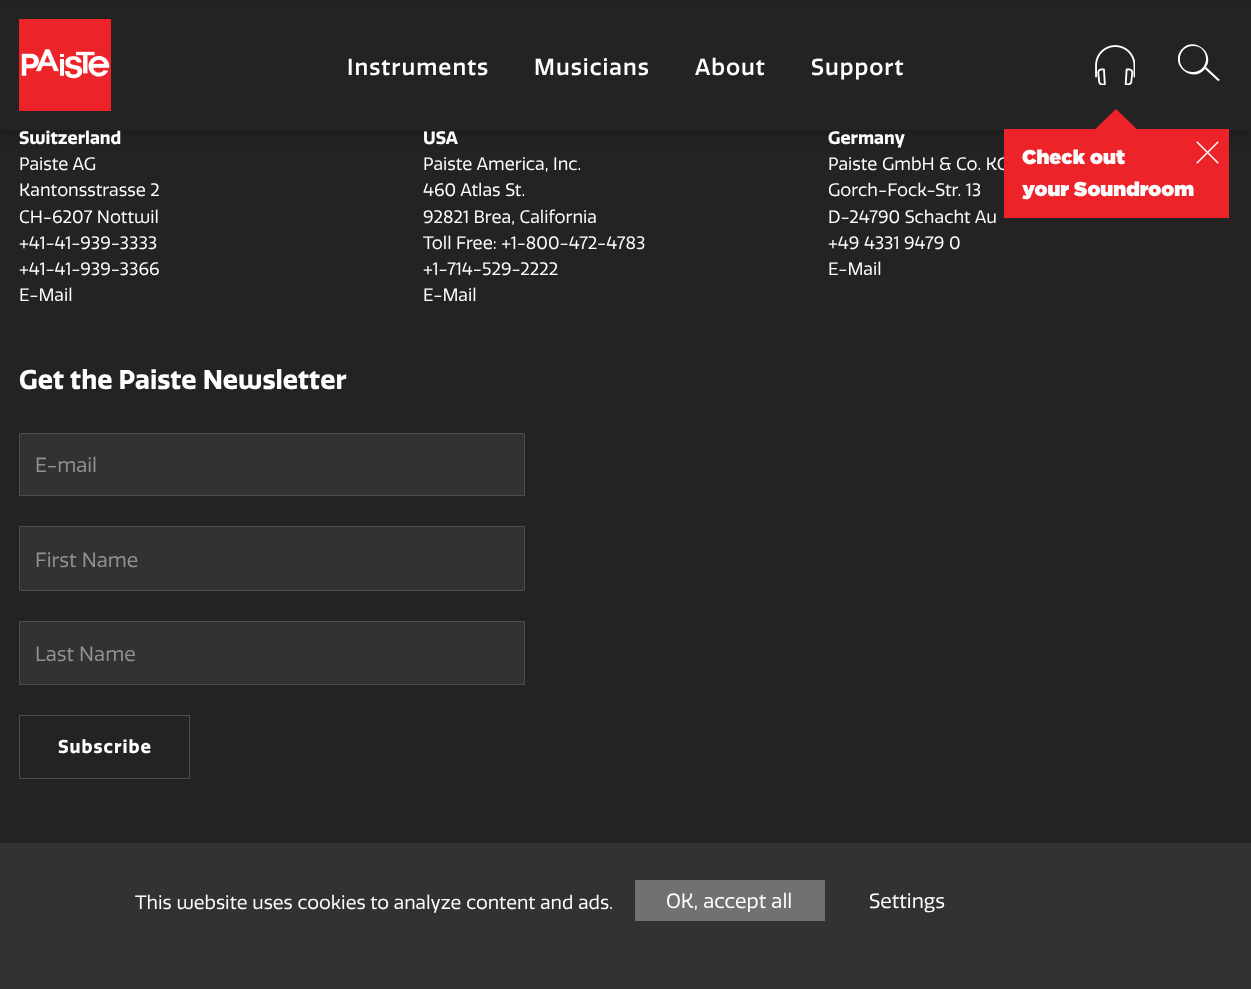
<?xml version="1.0" encoding="UTF-8"?>
<svg xmlns="http://www.w3.org/2000/svg" xmlns:xlink="http://www.w3.org/1999/xlink" width="1251" height="989">
  <defs>
    <clipPath id="clip1"><rect x="1178" y="41" width="42" height="43" /></clipPath>
  </defs>
  <rect width="100%" height="100%" fill="#232323" />
  <rect y="6" width="1251" height="130" fill="#171717" fill-opacity="0.5" filter="blur(6px)" />
  <rect y="5" width="1251" height="125" fill="#232323" />
  <image x="19" y="19" width="92" height="92" xlink:href="image1.png" />
  <g clip-path="url(#clip1)">
    <path d="M 1220 80 l -14 -13 c 9 -14 -11 -30 -23 -19 c -16 15 9 37 22 21 l 13 12 z m -27 -8 c -18 0 -17 -26 0 -26 c 18 0 17 27 -1 26 z" fill="#ffffff" />
  </g>
  <image x="1095" y="45" width="40" height="40" xlink:href="image2.png" />
  <rect x="19.5" y="433.5" width="505" height="62" fill="#323232" stroke="#4d4d4d" />
  <rect x="19.5" y="526.5" width="505" height="64" fill="#323232" stroke="#4d4d4d" />
  <rect x="19.5" y="621.5" width="505" height="63" fill="#323232" stroke="#4d4d4d" />
  <rect x="19.5" y="715.5" width="170" height="63" fill="none" stroke="#4d4d4d" />
  <rect y="843" width="1251" height="146" fill="#323232" />
  <rect x="635" y="880" width="190" height="41" fill="#717171" />
  <text x="347" y="75" style="font-family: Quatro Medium; font-size: 22.5px; font-weight: 500; letter-spacing: 1px; fill: #fefefe">Instruments</text>
  <text x="534" y="75" style="font-family: Quatro Medium; font-size: 22.5px; font-weight: 500; letter-spacing: 1px; fill: #fefefe">Musicians</text>
  <text x="695" y="75" style="font-family: Quatro Medium; font-size: 22.5px; font-weight: 500; letter-spacing: 1px; fill: #fefefe">About</text>
  <text x="811" y="75" style="font-family: Quatro Medium; font-size: 22.5px; font-weight: 500; letter-spacing: 1px; fill: #fefefe">Support</text>
  <text x="19" y="144" style="font-family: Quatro; font-size: 17.5px; font-weight: bold; fill: #fefefe">Switzerland</text>
  <text x="19" y="170" style="font-family: Quatro; font-size: 17.5px; fill: #fefefe">Paiste AG</text>
  <text x="19" y="196" style="font-family: Quatro; font-size: 17.5px; fill: #fefefe">Kantonsstrasse 2</text>
  <text x="19" y="223" style="font-family: Quatro; font-size: 17.5px; fill: #fefefe">CH-6207 Nottwil</text>
  <text x="19" y="249" style="font-family: Quatro; font-size: 17.5px; fill: #fefefe">+41-41-939-3333</text>
  <text x="19" y="275" style="font-family: Quatro; font-size: 17.5px; fill: #fefefe">+41-41-939-3366</text>
  <text x="19" y="301" style="font-family: Quatro; font-size: 17.5px; fill: #fefefe">E-Mail</text>
  <text x="423" y="144" style="font-family: Quatro; font-size: 17.5px; font-weight: bold; fill: #fefefe">USA</text>
  <text x="423" y="170" style="font-family: Quatro; font-size: 17.5px; fill: #fefefe">Paiste America, Inc.</text>
  <text x="423" y="196" style="font-family: Quatro; font-size: 17.5px; fill: #fefefe">460 Atlas St.</text>
  <text x="423" y="223" style="font-family: Quatro; font-size: 17.5px; fill: #fefefe">92821 Brea, California</text>
  <text x="423" y="249" style="font-family: Quatro; font-size: 17.5px; fill: #fefefe">Toll Free: +1-800-472-4783</text>
  <text x="423" y="275" style="font-family: Quatro; font-size: 17.5px; fill: #fefefe">+1-714-529-2222</text>
  <text x="423" y="301" style="font-family: Quatro; font-size: 17.5px; fill: #fefefe">E-Mail</text>
  <text x="828" y="144" style="font-family: Quatro; font-size: 17.5px; font-weight: bold; fill: #fefefe">Germany</text>
  <text x="828" y="170" style="font-family: Quatro; font-size: 17.5px; fill: #fefefe">Paiste GmbH &amp; Co. KG</text>
  <rect x="1004" y="129" width="225" height="89" fill="#ec2329" />
  <image x="1196" y="141" width="23" height="23" xlink:href="image3.png" />
  <text x="1022" y="196" style="font-family: 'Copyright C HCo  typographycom'; font-size: 20px; font-weight: 500; fill: #fefefe">your Soundroom</text>
  <path d="M 1116 109 l 27 26 l -27 27 l -27 -27 z" fill="#ec2329" />
  <text x="1022" y="164" style="font-family: 'Copyright C HCo  typographycom'; font-size: 20px; font-weight: 500; fill: #fefefe">Check out</text>
  <text x="828" y="196" style="font-family: Quatro; font-size: 17.5px; fill: #fefefe">Gorch-Fock-Str. 13</text>
  <text x="828" y="223" style="font-family: Quatro; font-size: 17.5px; fill: #fefefe">D-24790 Schacht Au</text>
  <text x="828" y="249" style="font-family: Quatro; font-size: 17.5px; fill: #fefefe">+49 4331 9479 0</text>
  <text x="828" y="275" style="font-family: Quatro; font-size: 17.5px; fill: #fefefe">E-Mail</text>
  <text x="19" y="389" style="font-family: Quatro; font-size: 26.25px; font-weight: bold; fill: #fefefe">Get the Paiste Newsletter</text>
  <text x="35" y="472" style="font-family: Quatro; font-size: 20px; fill: #919191">E-mail</text>
  <text x="35" y="567" style="font-family: Quatro; font-size: 20px; fill: #919191">First Name</text>
  <text x="35" y="661" style="font-family: Quatro; font-size: 20px; fill: #919191">Last Name</text>
  <text x="58" y="753" style="font-family: Quatro; font-size: 18px; font-weight: bold; letter-spacing: 1px; fill: #fefefe">Subscribe</text>
  <text x="135" y="909" style="font-family: Quatro; font-size: 18.75px; fill: #fefefe">This website uses cookies to analyze content and ads.</text>
  <text x="666" y="908" style="font-family: Quatro; font-size: 20px; fill: #fefefe">OK, accept all</text>
  <text x="869" y="908" style="font-family: Quatro; font-size: 20px; fill: #fefefe">Settings</text>
</svg>
